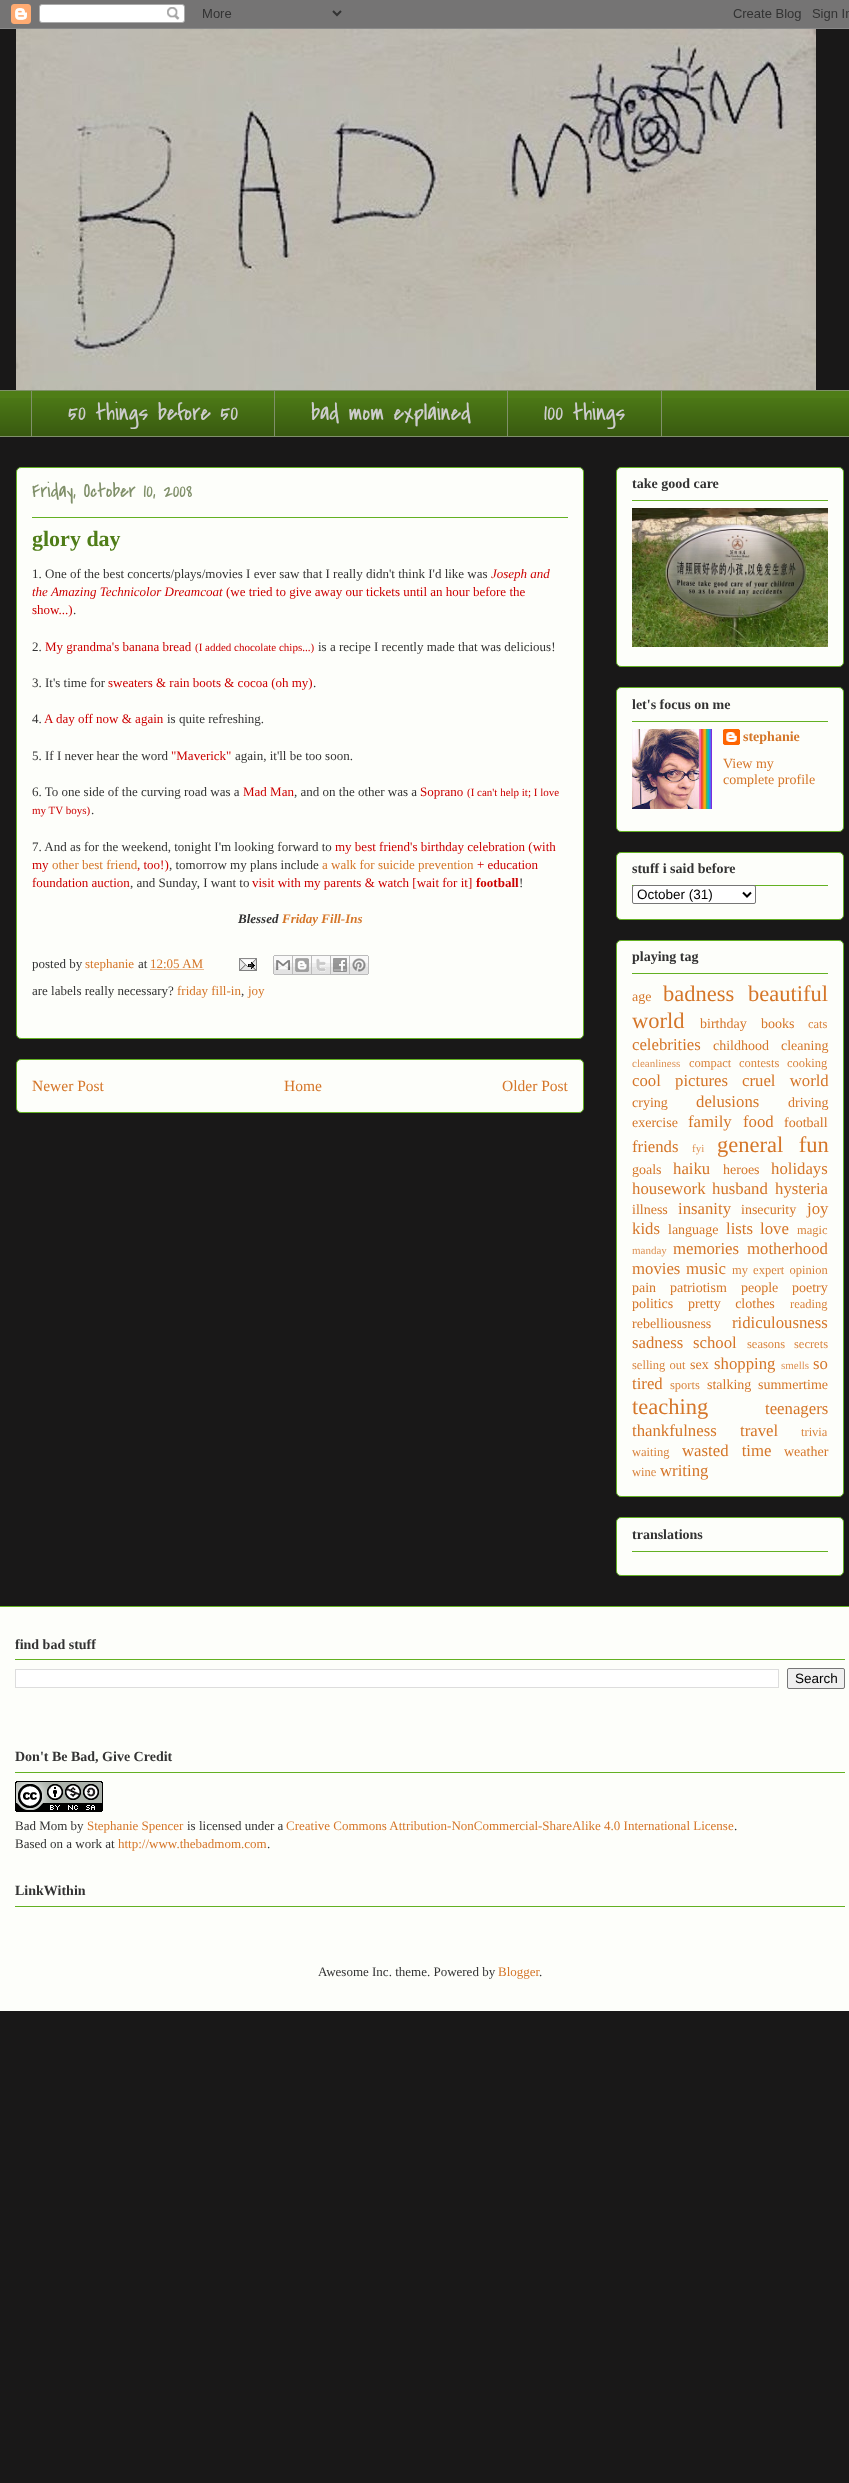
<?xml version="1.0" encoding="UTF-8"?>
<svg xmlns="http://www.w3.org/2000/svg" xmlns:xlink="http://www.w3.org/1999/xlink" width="849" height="2483">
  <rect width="100%" height="100%" fill="#191818" />
  <image x="0" y="0" width="849" height="29" xlink:href="image1.png" />
  <image x="16" y="29" width="800" height="361" xlink:href="image2.png" />
  <rect y="391" width="849" height="45" fill="#4f7d17" />
  <image x="0" y="398" width="849" height="38" xlink:href="image3.png" />
  <rect y="390" width="849" height="1" fill="#80906a" />
  <rect x="31" y="390" width="1" height="47" fill="#80906a" />
  <rect x="274" y="390" width="1" height="47" fill="#80906a" />
  <rect x="507.5" y="390.5" width="154" height="46" fill="none" stroke="#80906a" />
  <rect y="436" width="849" height="1" fill="#80906a" />
  <rect x="16.5" y="467.5" width="567" height="571" rx="4.5" fill="#fdfefa" stroke="#63b122" />
  <rect x="32" y="517" width="536" height="1" fill="#63b122" />
  <path d="M 150.5 969.5 h 53" fill="none" stroke="#d57629" stroke-dasharray="1 1" />
  <image x="239" y="958" width="18" height="13" xlink:href="image4.png" />
  <image x="273" y="955" width="20" height="20" xlink:href="image5.png" />
  <image x="293" y="955" width="19" height="20" xlink:href="image6.png" />
  <image x="312" y="955" width="19" height="20" xlink:href="image7.png" />
  <image x="331" y="955" width="19" height="20" xlink:href="image8.png" />
  <image x="350" y="955" width="19" height="20" xlink:href="image9.png" />
  <rect x="16.5" y="1059.5" width="567" height="53" rx="4.5" fill="#fdfefa" stroke="#63b122" />
  <rect x="616.5" y="467.5" width="227" height="199" rx="4.5" fill="#fdfefa" stroke="#63b122" />
  <rect x="632" y="500" width="196" height="1" fill="#63b122" />
  <image x="632" y="508" width="196" height="139" xlink:href="image10.png" />
  <rect x="616.5" y="687.5" width="227" height="144" rx="4.5" fill="#fdfefa" stroke="#63b122" />
  <rect x="632" y="721" width="196" height="1" fill="#63b122" />
  <image x="632" y="729" width="80" height="80" xlink:href="image11.png" />
  <image x="723" y="729" width="17" height="16" xlink:href="image12.png" />
  <rect x="616.5" y="852.5" width="227" height="67" rx="4.5" fill="#fdfefa" stroke="#63b122" />
  <rect x="632" y="885" width="196" height="1" fill="#63b122" />
  <rect x="632.5" y="885.5" width="123" height="18" rx="1.5" fill="#ffffff" stroke="#767676" />
  <path d="M 743 892.5 l 4 4 l 4 -4" fill="none" stroke="#000000" stroke-width="2" />
  <rect x="616.5" y="940.5" width="227" height="556" rx="4.5" fill="#fdfefa" stroke="#63b122" />
  <rect x="632" y="973" width="196" height="1" fill="#63b122" />
  <rect x="616.5" y="1517.5" width="227" height="58" rx="4.5" fill="#fdfefa" stroke="#63b122" />
  <rect x="632" y="1551" width="196" height="1" fill="#63b122" />
  <rect y="1607" width="849" height="404" fill="#fdfefa" />
  <rect y="1606" width="849" height="1" fill="#63b122" />
  <rect x="15" y="1659" width="830" height="1" fill="#63b122" />
  <rect x="15.5" y="1669.5" width="763" height="18" fill="#ffffff" stroke="#dddddd" />
  <rect x="787.5" y="1668.5" width="57" height="20" rx="1.5" fill="#efefef" stroke="#767676" />
  <rect x="15" y="1772" width="830" height="1" fill="#63b122" />
  <image x="15" y="1781" width="88" height="31" xlink:href="image13.png" />
  <rect x="15" y="1906" width="830" height="1" fill="#63b122" />
  <text x="68" y="420" style="font-family: Covered By Your Grace; font-size: 24px; fill: #cccccc">50 things before 50</text>
  <text x="311" y="420" style="font-family: Covered By Your Grace; font-size: 24px; fill: #cccccc">bad mom explained</text>
  <text x="544" y="420" style="font-family: Covered By Your Grace; font-size: 24px; fill: #cccccc">100 things</text>
  <text x="32" y="497" style="font-family: Covered By Your Grace; font-size: 20px; fill: #80906a">Friday, October 10, 2008</text>
  <text x="32" y="546" style="font-family: Liberation Serif; font-size: 22px; font-weight: bold; fill: #4f7d17">glory day</text>
  <text x="32" y="578" style="font-family: Liberation Serif; font-size: 13px; fill: #333333">1. One of the best concerts/plays/movies I ever saw that I really didn't think I'd like was</text>
  <text x="491" y="578" style="font-family: Liberation Serif; font-size: 13px; font-style: italic; fill: #cc0000">Joseph and</text>
  <text x="32" y="596" style="font-family: Liberation Serif; font-size: 13px; font-style: italic; fill: #cc0000">the Amazing Technicolor Dreamcoat</text>
  <text x="226" y="596" style="font-family: Liberation Serif; font-size: 13px; fill: #cc0000">(we tried to give away our tickets until an hour before the</text>
  <text x="32" y="614" style="font-family: Liberation Serif; font-size: 13px; fill: #cc0000">show...)</text>
  <text x="73" y="614" style="font-family: Liberation Serif; font-size: 13px; fill: #333333">.</text>
  <text x="32" y="651" style="font-family: Liberation Serif; font-size: 13px; fill: #333333">2.</text>
  <text x="45" y="651" style="font-family: Liberation Serif; font-size: 13px; fill: #cc0000">My grandma's banana bread</text>
  <text x="195" y="651" style="font-family: Liberation Serif; font-size: 11px; fill: #cc0000">(I added chocolate chips...)</text>
  <text x="318" y="651" style="font-family: Liberation Serif; font-size: 13px; fill: #333333">is a recipe I recently made that was delicious!</text>
  <text x="32" y="687" style="font-family: Liberation Serif; font-size: 13px; fill: #333333">3. It's time for</text>
  <text x="108" y="687" style="font-family: Liberation Serif; font-size: 13px; fill: #cc0000">sweaters &amp; rain boots &amp; cocoa (oh my)</text>
  <text x="313" y="687" style="font-family: Liberation Serif; font-size: 13px; fill: #333333">.</text>
  <text x="32" y="723" style="font-family: Liberation Serif; font-size: 13px; fill: #333333">4.</text>
  <text x="44" y="723" style="font-family: Liberation Serif; font-size: 13px; fill: #cc0000">A day off now &amp; again</text>
  <text x="167" y="723" style="font-family: Liberation Serif; font-size: 13px; fill: #333333">is quite refreshing.</text>
  <text x="32" y="760" style="font-family: Liberation Serif; font-size: 13px; fill: #333333">5. If I never hear the word</text>
  <text x="171" y="760" style="font-family: Liberation Serif; font-size: 13px; fill: #cc0000">"Maverick"</text>
  <text x="235" y="760" style="font-family: Liberation Serif; font-size: 13px; fill: #333333">again, it'll be too soon.</text>
  <text x="32" y="796" style="font-family: Liberation Serif; font-size: 13px; fill: #333333">6. To one side of the curving road was a</text>
  <text x="243" y="796" style="font-family: Liberation Serif; font-size: 13px; fill: #cc0000">Mad Man</text>
  <text x="294" y="796" style="font-family: Liberation Serif; font-size: 13px; fill: #333333">, and on the other was a</text>
  <text x="420" y="796" style="font-family: Liberation Serif; font-size: 13px; fill: #cc0000">Soprano</text>
  <text x="467" y="796" style="font-family: Liberation Serif; font-size: 11px; fill: #cc0000">(I can't help it; I love</text>
  <text x="32" y="814" style="font-family: Liberation Serif; font-size: 11px; fill: #cc0000">my TV boys)</text>
  <text x="91" y="814" style="font-family: Liberation Serif; font-size: 13px; fill: #333333">.</text>
  <text x="32" y="851" style="font-family: Liberation Serif; font-size: 13px; fill: #333333">7. And as for the weekend, tonight I'm looking forward to</text>
  <text x="335" y="851" style="font-family: Liberation Serif; font-size: 13px; fill: #cc0000">my best friend's birthday celebration (with</text>
  <text x="32" y="869" style="font-family: Liberation Serif; font-size: 13px; fill: #cc0000">my</text>
  <text x="52" y="869" style="font-family: Liberation Serif; font-size: 13px; fill: #d57629">other best friend</text>
  <text x="137" y="869" style="font-family: Liberation Serif; font-size: 13px; fill: #cc0000">, too!)</text>
  <text x="169" y="869" style="font-family: Liberation Serif; font-size: 13px; fill: #333333">, tomorrow my plans include</text>
  <text x="322" y="869" style="font-family: Liberation Serif; font-size: 13px; fill: #d57629">a walk for suicide prevention</text>
  <text x="477" y="869" style="font-family: Liberation Serif; font-size: 13px; fill: #cc0000">+ education</text>
  <text x="32" y="887" style="font-family: Liberation Serif; font-size: 13px; fill: #cc0000">foundation auction</text>
  <text x="130" y="887" style="font-family: Liberation Serif; font-size: 13px; fill: #333333">, and Sunday, I want to</text>
  <text x="252" y="887" style="font-family: Liberation Serif; font-size: 13px; fill: #cc0000">visit with my parents &amp; watch [wait for it]</text>
  <text x="476" y="887" style="font-family: Liberation Serif; font-size: 13px; font-weight: bold; fill: #cc0000">football</text>
  <text x="519" y="887" style="font-family: Liberation Serif; font-size: 13px; fill: #333333">!</text>
  <text x="238" y="923" style="font-family: Liberation Serif; font-size: 13px; font-weight: bold; font-style: italic; fill: #333333">Blessed</text>
  <text x="282" y="923" style="font-family: Liberation Serif; font-size: 13px; font-weight: bold; font-style: italic; fill: #d57629">Friday Fill-Ins</text>
  <text x="32" y="968" style="font-family: Liberation Serif; font-size: 13px; fill: #333333">posted by</text>
  <text x="85" y="968" style="font-family: Liberation Serif; font-size: 13px; fill: #d57629">stephanie</text>
  <text x="138" y="968" style="font-family: Liberation Serif; font-size: 13px; fill: #333333">at</text>
  <text x="150" y="968" style="font-family: Liberation Serif; font-size: 13px; fill: #d57629">12:05 AM</text>
  <text x="32" y="995" style="font-family: Liberation Serif; font-size: 13px; fill: #333333">are labels really necessary?</text>
  <text x="177" y="995" style="font-family: Liberation Serif; font-size: 13px; fill: #d57629">friday fill-in</text>
  <text x="241" y="995" style="font-family: Liberation Serif; font-size: 13px; fill: #333333">,</text>
  <text x="248" y="995" style="font-family: Liberation Serif; font-size: 13px; fill: #d57629">joy</text>
  <text x="32" y="1091" style="font-family: Liberation Serif; font-size: 15.5px; fill: #d57629">Newer Post</text>
  <text x="284" y="1091" style="font-family: Liberation Serif; font-size: 15.5px; fill: #d57629">Home</text>
  <text x="502" y="1091" style="font-family: Liberation Serif; font-size: 15.5px; fill: #d57629">Older Post</text>
  <text x="632" y="488" style="font-family: Liberation Serif; font-size: 14px; font-weight: bold; fill: #333333">take good care</text>
  <text x="632" y="709" style="font-family: Liberation Serif; font-size: 14px; font-weight: bold; fill: #333333">let's focus on me</text>
  <text x="743" y="741" style="font-family: Liberation Serif; font-size: 14px; font-weight: bold; fill: #d57629">stephanie</text>
  <text x="723" y="768" style="font-family: Liberation Serif; font-size: 14px; fill: #d57629">View my</text>
  <text x="723" y="784" style="font-family: Liberation Serif; font-size: 14px; fill: #d57629">complete profile</text>
  <text x="632" y="873" style="font-family: Liberation Serif; font-size: 14px; font-weight: bold; fill: #333333">stuff i said before</text>
  <text x="637" y="899" style="font-family: Liberation Sans; font-size: 13.5px; fill: #000000">October (31)</text>
  <text x="632" y="961" style="font-family: Liberation Serif; font-size: 14px; font-weight: bold; fill: #333333">playing tag</text>
  <text x="632" y="1001" style="font-family: Liberation Serif; font-size: 14px; fill: #d57629">age</text>
  <text x="663" y="1001" style="font-family: Liberation Serif; font-size: 22.5px; fill: #d57629">badness</text>
  <text x="748" y="1001" style="font-family: Liberation Serif; font-size: 22.5px; fill: #d57629">beautiful</text>
  <text x="632" y="1028" style="font-family: Liberation Serif; font-size: 22.5px; fill: #d57629">world</text>
  <text x="700" y="1028" style="font-family: Liberation Serif; font-size: 14px; fill: #d57629">birthday</text>
  <text x="761" y="1028" style="font-family: Liberation Serif; font-size: 14px; fill: #d57629">books</text>
  <text x="808" y="1028" style="font-family: Liberation Serif; font-size: 12.5px; fill: #d9843e">cats</text>
  <text x="632" y="1050" style="font-family: Liberation Serif; font-size: 16.75px; fill: #d57629">celebrities</text>
  <text x="713" y="1050" style="font-family: Liberation Serif; font-size: 14px; fill: #d57629">childhood</text>
  <text x="781" y="1050" style="font-family: Liberation Serif; font-size: 14px; fill: #d57629">cleaning</text>
  <text x="632" y="1067" style="font-family: Liberation Serif; font-size: 11px; fill: #dd9153">cleanliness</text>
  <text x="689" y="1067" style="font-family: Liberation Serif; font-size: 12.5px; fill: #d9843e">compact</text>
  <text x="739" y="1067" style="font-family: Liberation Serif; font-size: 12.5px; fill: #d9843e">contests</text>
  <text x="787" y="1067" style="font-family: Liberation Serif; font-size: 12.5px; fill: #d9843e">cooking</text>
  <text x="632" y="1086" word-spacing="10" style="font-family: Liberation Serif; font-size: 16.75px; fill: #d57629">cool pictures</text>
  <text x="742" y="1086" word-spacing="10" style="font-family: Liberation Serif; font-size: 16.75px; fill: #d57629">cruel world</text>
  <text x="632" y="1107" style="font-family: Liberation Serif; font-size: 14px; fill: #d57629">crying</text>
  <text x="696" y="1107" style="font-family: Liberation Serif; font-size: 16.75px; fill: #d57629">delusions</text>
  <text x="788" y="1107" style="font-family: Liberation Serif; font-size: 14px; fill: #d57629">driving</text>
  <text x="632" y="1127" style="font-family: Liberation Serif; font-size: 14px; fill: #d57629">exercise</text>
  <text x="688" y="1127" style="font-family: Liberation Serif; font-size: 16.75px; fill: #d57629">family</text>
  <text x="743" y="1127" style="font-family: Liberation Serif; font-size: 16.75px; fill: #d57629">food</text>
  <text x="784" y="1127" style="font-family: Liberation Serif; font-size: 14px; fill: #d57629">football</text>
  <text x="632" y="1152" style="font-family: Liberation Serif; font-size: 16.75px; fill: #d57629">friends</text>
  <text x="692" y="1152" style="font-family: Liberation Serif; font-size: 11px; fill: #dd9153">fyi</text>
  <text x="717" y="1152" word-spacing="10" style="font-family: Liberation Serif; font-size: 22.5px; fill: #d57629">general fun</text>
  <text x="632" y="1174" style="font-family: Liberation Serif; font-size: 14px; fill: #d57629">goals</text>
  <text x="673" y="1174" style="font-family: Liberation Serif; font-size: 16.75px; fill: #d57629">haiku</text>
  <text x="723" y="1174" style="font-family: Liberation Serif; font-size: 14px; fill: #d57629">heroes</text>
  <text x="771" y="1174" style="font-family: Liberation Serif; font-size: 16.75px; fill: #d57629">holidays</text>
  <text x="632" y="1194" style="font-family: Liberation Serif; font-size: 16.75px; fill: #d57629">housework</text>
  <text x="712" y="1194" style="font-family: Liberation Serif; font-size: 16.75px; fill: #d57629">husband</text>
  <text x="775" y="1194" style="font-family: Liberation Serif; font-size: 16.75px; fill: #d57629">hysteria</text>
  <text x="632" y="1214" style="font-family: Liberation Serif; font-size: 14px; fill: #d57629">illness</text>
  <text x="678" y="1214" style="font-family: Liberation Serif; font-size: 16.75px; fill: #d57629">insanity</text>
  <text x="741" y="1214" style="font-family: Liberation Serif; font-size: 14px; fill: #d57629">insecurity</text>
  <text x="807" y="1214" style="font-family: Liberation Serif; font-size: 16.75px; fill: #d57629">joy</text>
  <text x="632" y="1234" style="font-family: Liberation Serif; font-size: 16.75px; fill: #d57629">kids</text>
  <text x="668" y="1234" style="font-family: Liberation Serif; font-size: 14px; fill: #d57629">language</text>
  <text x="726" y="1234" style="font-family: Liberation Serif; font-size: 16.75px; fill: #d57629">lists</text>
  <text x="760" y="1234" style="font-family: Liberation Serif; font-size: 16.75px; fill: #d57629">love</text>
  <text x="797" y="1234" style="font-family: Liberation Serif; font-size: 12.5px; fill: #d9843e">magic</text>
  <text x="632" y="1254" style="font-family: Liberation Serif; font-size: 11px; fill: #dd9153">manday</text>
  <text x="673" y="1254" style="font-family: Liberation Serif; font-size: 16.75px; fill: #d57629">memories</text>
  <text x="747" y="1254" style="font-family: Liberation Serif; font-size: 16.75px; fill: #d57629">motherhood</text>
  <text x="632" y="1274" style="font-family: Liberation Serif; font-size: 16.75px; fill: #d57629">movies</text>
  <text x="686" y="1274" style="font-family: Liberation Serif; font-size: 16.75px; fill: #d57629">music</text>
  <text x="732" y="1274" word-spacing="2" style="font-family: Liberation Serif; font-size: 12.5px; fill: #d9843e">my expert opinion</text>
  <text x="632" y="1292" style="font-family: Liberation Serif; font-size: 14px; fill: #d57629">pain</text>
  <text x="670" y="1292" style="font-family: Liberation Serif; font-size: 14px; fill: #d57629">patriotism</text>
  <text x="741" y="1292" style="font-family: Liberation Serif; font-size: 14px; fill: #d57629">people</text>
  <text x="792" y="1292" style="font-family: Liberation Serif; font-size: 14px; fill: #d57629">poetry</text>
  <text x="632" y="1308" style="font-family: Liberation Serif; font-size: 14px; fill: #d57629">politics</text>
  <text x="688" y="1308" word-spacing="11" style="font-family: Liberation Serif; font-size: 14px; fill: #d57629">pretty clothes</text>
  <text x="790" y="1308" style="font-family: Liberation Serif; font-size: 12.5px; fill: #d9843e">reading</text>
  <text x="632" y="1328" style="font-family: Liberation Serif; font-size: 14px; fill: #d57629">rebelliousness</text>
  <text x="732" y="1328" style="font-family: Liberation Serif; font-size: 16.75px; fill: #d57629">ridiculousness</text>
  <text x="632" y="1348" style="font-family: Liberation Serif; font-size: 16.75px; fill: #d57629">sadness</text>
  <text x="693" y="1348" style="font-family: Liberation Serif; font-size: 16.75px; fill: #d57629">school</text>
  <text x="747" y="1348" style="font-family: Liberation Serif; font-size: 12.5px; fill: #d9843e">seasons</text>
  <text x="794" y="1348" style="font-family: Liberation Serif; font-size: 12.5px; fill: #d9843e">secrets</text>
  <text x="632" y="1369" word-spacing="1" style="font-family: Liberation Serif; font-size: 12.5px; fill: #d9843e">selling out</text>
  <text x="690" y="1369" style="font-family: Liberation Serif; font-size: 14px; fill: #d57629">sex</text>
  <text x="714" y="1369" style="font-family: Liberation Serif; font-size: 16.75px; fill: #d57629">shopping</text>
  <text x="781" y="1369" style="font-family: Liberation Serif; font-size: 11px; fill: #dd9153">smells</text>
  <text x="813" y="1369" style="font-family: Liberation Serif; font-size: 16.75px; fill: #d57629">so</text>
  <text x="632" y="1389" style="font-family: Liberation Serif; font-size: 16.75px; fill: #d57629">tired</text>
  <text x="670" y="1389" style="font-family: Liberation Serif; font-size: 12.5px; fill: #d9843e">sports</text>
  <text x="707" y="1389" style="font-family: Liberation Serif; font-size: 14px; fill: #d57629">stalking</text>
  <text x="758" y="1389" style="font-family: Liberation Serif; font-size: 14px; fill: #d57629">summertime</text>
  <text x="632" y="1414" style="font-family: Liberation Serif; font-size: 22.5px; fill: #d57629">teaching</text>
  <text x="765" y="1414" style="font-family: Liberation Serif; font-size: 16.75px; fill: #d57629">teenagers</text>
  <text x="632" y="1436" style="font-family: Liberation Serif; font-size: 16.75px; fill: #d57629">thankfulness</text>
  <text x="740" y="1436" style="font-family: Liberation Serif; font-size: 16.75px; fill: #d57629">travel</text>
  <text x="801" y="1436" style="font-family: Liberation Serif; font-size: 12.5px; fill: #d9843e">trivia</text>
  <text x="632" y="1456" style="font-family: Liberation Serif; font-size: 12.5px; fill: #d9843e">waiting</text>
  <text x="682" y="1456" word-spacing="9" style="font-family: Liberation Serif; font-size: 16.75px; fill: #d57629">wasted time</text>
  <text x="784" y="1456" style="font-family: Liberation Serif; font-size: 14px; fill: #d57629">weather</text>
  <text x="632" y="1476" style="font-family: Liberation Serif; font-size: 12.5px; fill: #d9843e">wine</text>
  <text x="660" y="1476" style="font-family: Liberation Serif; font-size: 16.75px; fill: #d57629">writing</text>
  <text x="632" y="1539" style="font-family: Liberation Serif; font-size: 14px; font-weight: bold; fill: #333333">translations</text>
  <text x="15" y="1649" style="font-family: Liberation Serif; font-size: 14px; font-weight: bold; fill: #333333">find bad stuff</text>
  <text x="795" y="1683" style="font-family: Liberation Sans; font-size: 13.5px; fill: #000000">Search</text>
  <text x="15" y="1761" style="font-family: Liberation Serif; font-size: 14px; font-weight: bold; fill: #333333">Don't Be Bad, Give Credit</text>
  <text x="15" y="1830" style="font-family: Liberation Serif; font-size: 13px; fill: #333333">Bad Mom by</text>
  <text x="87" y="1830" style="font-family: Liberation Serif; font-size: 13px; fill: #d57629">Stephanie Spencer</text>
  <text x="187" y="1830" style="font-family: Liberation Serif; font-size: 13px; fill: #333333">is licensed under a</text>
  <text x="286" y="1830" style="font-family: Liberation Serif; font-size: 13px; fill: #d57629">Creative Commons Attribution-NonCommercial-ShareAlike 4.0 International License</text>
  <text x="734" y="1830" style="font-family: Liberation Serif; font-size: 13px; fill: #333333">.</text>
  <text x="15" y="1848" style="font-family: Liberation Serif; font-size: 13px; fill: #333333">Based on a work at</text>
  <text x="118" y="1848" style="font-family: Liberation Serif; font-size: 13px; fill: #d57629">http://www.thebadmom.com</text>
  <text x="267" y="1848" style="font-family: Liberation Serif; font-size: 13px; fill: #333333">.</text>
  <text x="15" y="1895" style="font-family: Liberation Serif; font-size: 14px; font-weight: bold; fill: #333333">LinkWithin</text>
  <text x="318" y="1976" style="font-family: Liberation Serif; font-size: 13px; fill: #333333">Awesome Inc. theme. Powered by</text>
  <text x="498" y="1976" style="font-family: Liberation Serif; font-size: 13px; fill: #d57629">Blogger</text>
  <text x="539" y="1976" style="font-family: Liberation Serif; font-size: 13px; fill: #333333">.</text>
</svg>
